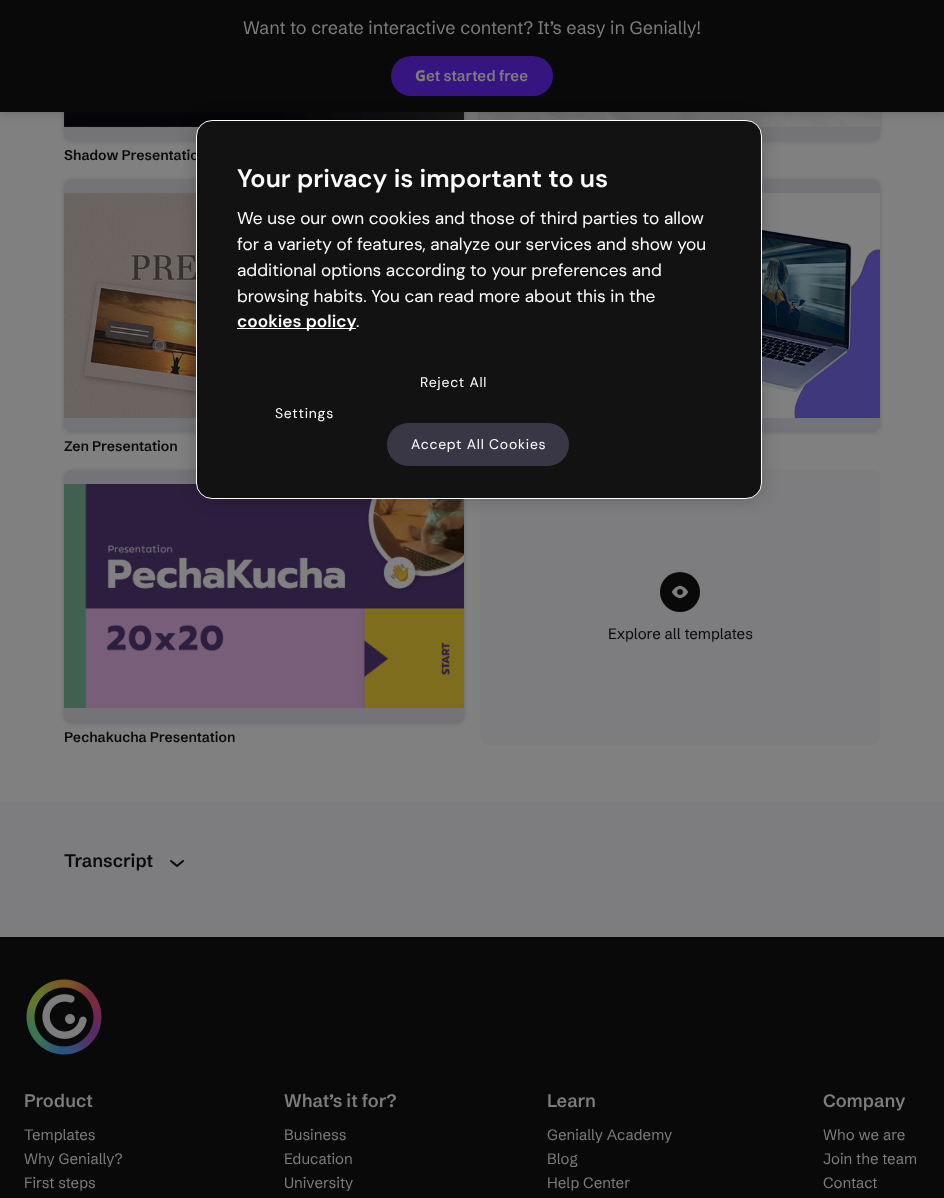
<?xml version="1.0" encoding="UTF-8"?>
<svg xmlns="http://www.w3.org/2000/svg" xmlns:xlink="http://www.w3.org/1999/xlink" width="944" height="1198">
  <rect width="100%" height="100%" fill="#808080" />
  <rect x="480" y="-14" width="400" height="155" rx="8" fill="#090909" fill-opacity="0.2" filter="blur(2px)" />
  <rect x="480" y="-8" width="400" height="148" rx="8" fill="#747378" />
  <image x="480" y="112" width="400" height="15" xlink:href="image1.png" />
  <rect x="64" y="-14" width="400" height="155" rx="8" fill="#090909" fill-opacity="0.2" filter="blur(2px)" />
  <rect x="64" y="-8" width="400" height="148" rx="8" fill="#747378" />
  <image x="64" y="112" width="400" height="15" xlink:href="image2.png" />
  <rect y="-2" width="944" height="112" fill="#090909" fill-opacity="0.3" filter="blur(6.5px)" />
  <rect width="944" height="112" fill="#090909" />
  <rect x="391" y="56" width="162" height="40" rx="20" fill="#361580" />
  <rect x="480" y="180" width="400" height="252" rx="8" fill="#090909" fill-opacity="0.2" filter="blur(2px)" />
  <rect x="480" y="179" width="400" height="252" rx="8" fill="#747378" />
  <image x="762" y="193" width="118" height="225" xlink:href="image3.png" />
  <rect x="64" y="180" width="400" height="252" rx="8" fill="#090909" fill-opacity="0.2" filter="blur(2px)" />
  <rect x="64" y="179" width="400" height="252" rx="8" fill="#747378" />
  <image x="64" y="193" width="132" height="225" xlink:href="image4.png" />
  <rect x="480" y="470" width="400" height="275" rx="8" fill="#7d7c7e" />
  <circle cx="680" cy="592" r="20" fill="#090909" />
  <image x="672" y="586" width="16" height="12" xlink:href="image5.png" />
  <rect x="64" y="471" width="400" height="252" rx="8" fill="#090909" fill-opacity="0.2" filter="blur(2px)" />
  <rect x="64" y="470" width="400" height="252" rx="8" fill="#747378" />
  <image x="64" y="484" width="400" height="224" xlink:href="image6.png" />
  <rect y="801" width="944" height="136" fill="#7d7c7e" />
  <image x="170" y="860" width="14" height="7" xlink:href="image7.png" />
  <rect y="937" width="944" height="261" fill="#090909" />
  <image x="26" y="979" width="76" height="76" xlink:href="image8.png" />
  <rect x="196" y="120" width="566" height="379" rx="16" fill="#000000" fill-opacity="0.2" filter="blur(9px)" />
  <text x="243" y="34" style="font-family: Schibsted Grotesk; font-size: 18px; fill: #7d7c7e">Want to create interactive content? It’s easy in Genially!</text>
  <text x="415" y="81" style="font-family: Noto Sans; font-size: 15px; font-weight: 800; fill: #7d7c7e">G</text>
  <text x="426" y="81" style="font-family: Schibsted Grotesk; font-size: 15px; font-weight: 600; fill: #7d7c7e">et started free</text>
  <text x="64" y="160" style="font-family: Schibsted Grotesk; font-size: 14px; font-weight: 600; fill: #090909">Shadow Presentatio</text>
  <text x="64" y="451" style="font-family: Schibsted Grotesk; font-size: 14px; font-weight: 600; fill: #090909">Zen Presentation</text>
  <text x="608" y="639" style="font-family: Schibsted Grotesk; font-size: 15px; fill: #090909">Explore all templates</text>
  <text x="64" y="742" style="font-family: Schibsted Grotesk; font-size: 14px; font-weight: 600; fill: #090909">Pechakucha Presentation</text>
  <text x="64" y="867" style="font-family: Schibsted Grotesk; font-size: 18px; font-weight: 600; fill: #090909">Transcript</text>
  <text x="24" y="1107" style="font-family: Schibsted Grotesk; font-size: 18px; font-weight: 600; fill: #7d7c7e">Product</text>
  <text x="24" y="1140" style="font-family: Schibsted Grotesk; font-size: 15px; fill: #7d7c7e">Templates</text>
  <text x="24" y="1164" style="font-family: Schibsted Grotesk; font-size: 15px; fill: #7d7c7e">Why Genially?</text>
  <text x="24" y="1188" style="font-family: Schibsted Grotesk; font-size: 15px; fill: #7d7c7e">First steps</text>
  <text x="284" y="1107" style="font-family: Schibsted Grotesk; font-size: 18px; font-weight: 600; fill: #7d7c7e">What’s it for?</text>
  <text x="284" y="1140" style="font-family: Schibsted Grotesk; font-size: 15px; fill: #7d7c7e">Business</text>
  <text x="284" y="1164" style="font-family: Schibsted Grotesk; font-size: 15px; fill: #7d7c7e">Education</text>
  <text x="284" y="1188" style="font-family: Schibsted Grotesk; font-size: 15px; fill: #7d7c7e">University</text>
  <text x="547" y="1107" style="font-family: Schibsted Grotesk; font-size: 18px; font-weight: 600; fill: #7d7c7e">Learn</text>
  <text x="547" y="1140" style="font-family: Schibsted Grotesk; font-size: 15px; fill: #7d7c7e">Genially Academy</text>
  <text x="547" y="1164" style="font-family: Schibsted Grotesk; font-size: 15px; fill: #7d7c7e">Blog</text>
  <text x="547" y="1188" style="font-family: Schibsted Grotesk; font-size: 15px; fill: #7d7c7e">Help Center</text>
  <text x="823" y="1107" style="font-family: Schibsted Grotesk; font-size: 18px; font-weight: 600; fill: #7d7c7e">Company</text>
  <text x="823" y="1140" style="font-family: Schibsted Grotesk; font-size: 15px; fill: #7d7c7e">Who we are</text>
  <text x="823" y="1164" style="font-family: Schibsted Grotesk; font-size: 15px; fill: #7d7c7e">Join the team</text>
  <text x="823" y="1188" style="font-family: Schibsted Grotesk; font-size: 15px; fill: #7d7c7e">Contact</text>
  <rect x="196.5" y="120.5" width="565" height="378" rx="15.5" fill="#121212" stroke="#ffffff" />
  <text x="237" y="187" style="font-family: DM Sans; font-size: 25.25px; font-weight: 600; fill: #ffffff">Your privacy is important to us</text>
  <text x="237" y="224" style="font-family: DM Sans; font-size: 17.25px; fill: #ffffff">We use our own cookies and those of third parties to allow</text>
  <text x="237" y="250" style="font-family: DM Sans; font-size: 17.25px; fill: #ffffff">for a variety of features, analyze our services and show you</text>
  <text x="237" y="276" style="font-family: DM Sans; font-size: 17.25px; fill: #ffffff">additional options according to your preferences and</text>
  <text x="237" y="302" style="font-family: DM Sans; font-size: 17.25px; fill: #ffffff">browsing habits. You can read more about this in the</text>
  <rect x="237" y="328" width="119" height="1" fill="#ffffff" />
  <text x="237" y="327" style="font-family: DM Sans; font-size: 17.25px; font-weight: 600; fill: #ffffff">cookies policy</text>
  <text x="356" y="327" style="font-family: DM Sans; font-size: 17.25px; fill: #ffffff">.</text>
  <text x="275" y="418" style="font-family: DM Sans; font-size: 14px; letter-spacing: 0.75px; fill: #ffffff">Settings</text>
  <text x="420" y="387" style="font-family: DM Sans; font-size: 14px; letter-spacing: 0.75px; fill: #ffffff">Reject All</text>
  <rect x="386.5" y="422.5" width="183" height="44" rx="22" fill="#393645" stroke="#121212" />
  <text x="411" y="449" style="font-family: DM Sans; font-size: 14px; letter-spacing: 0.75px; fill: #ffffff">Accept All Cookies</text>
</svg>
